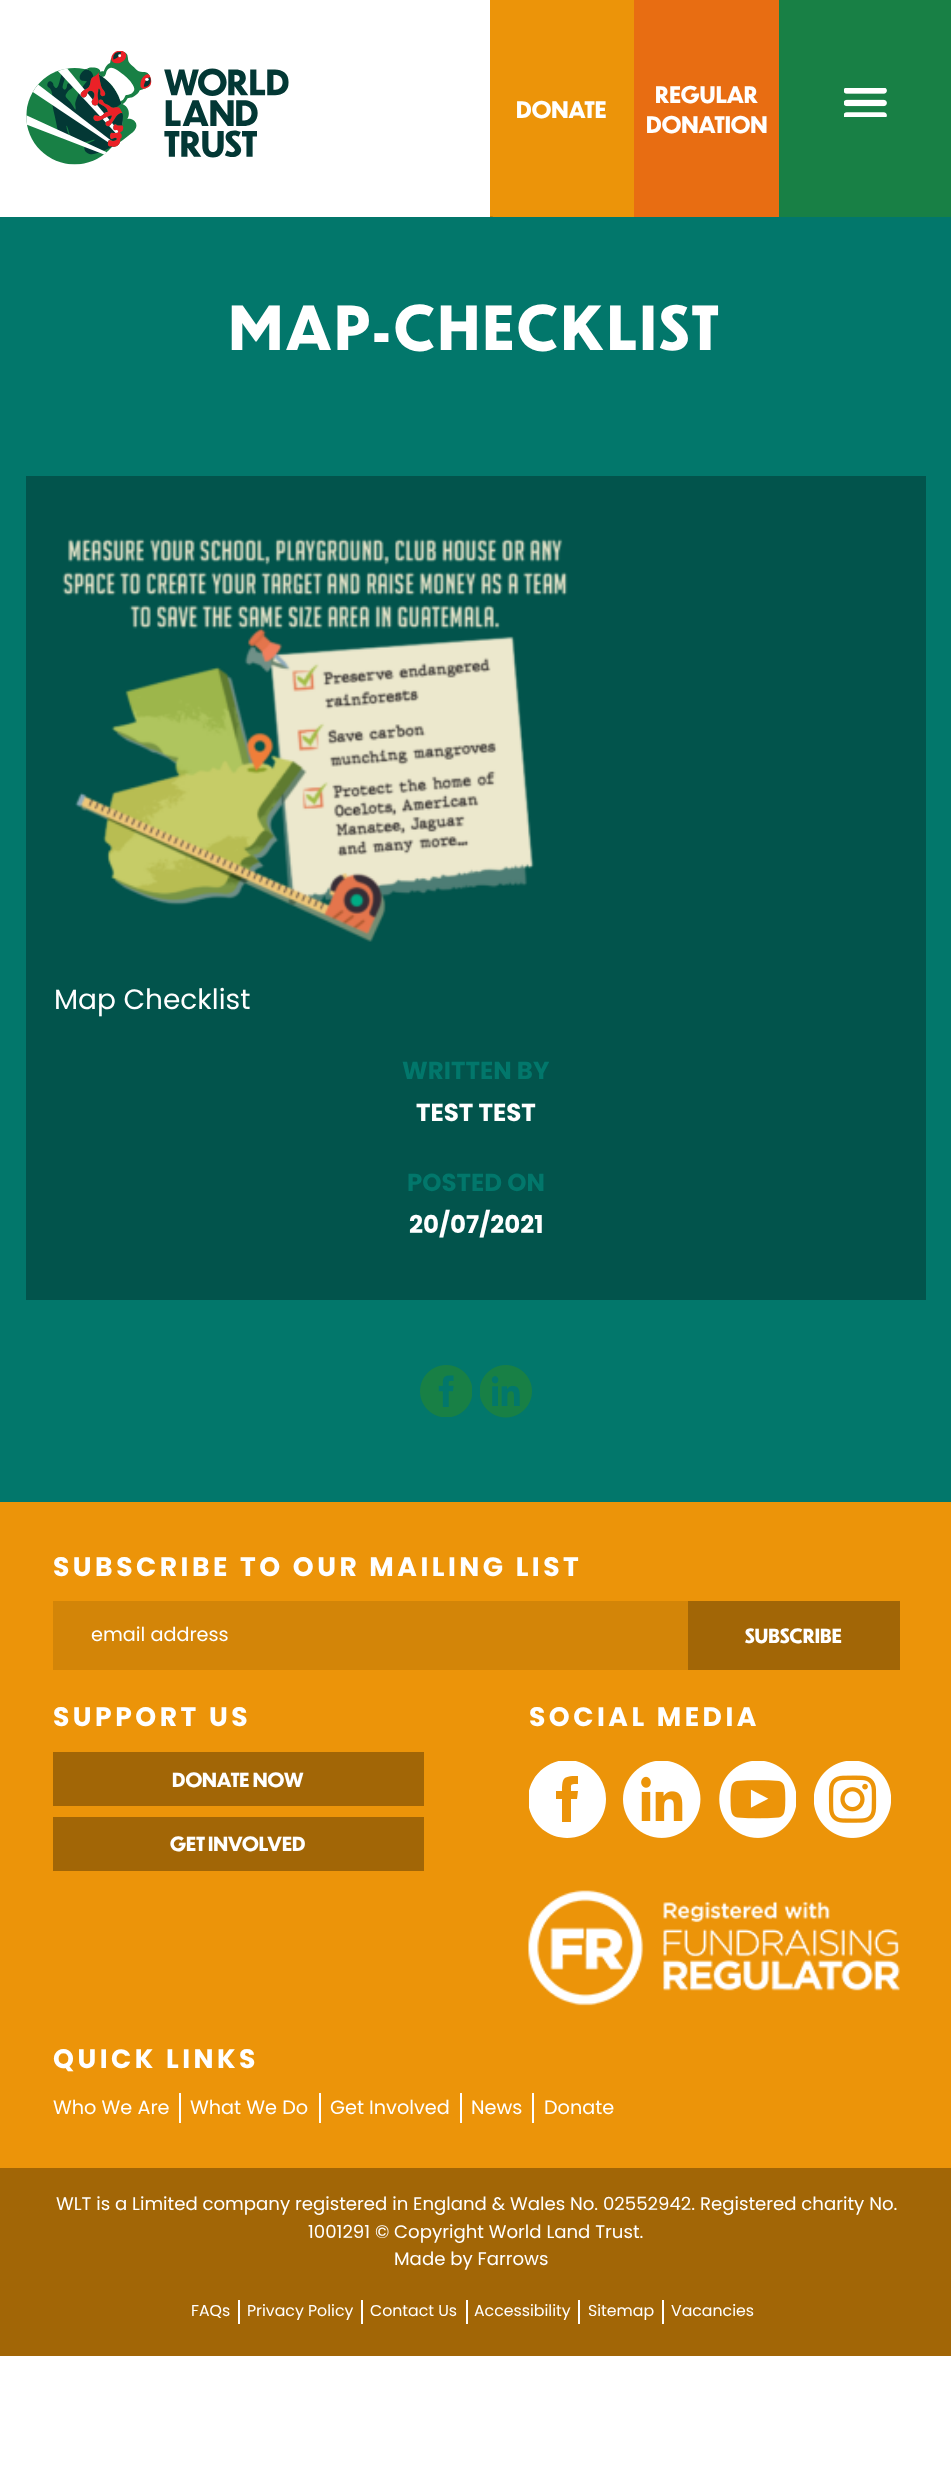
<?xml version="1.0" encoding="UTF-8"?>
<svg xmlns="http://www.w3.org/2000/svg" xmlns:xlink="http://www.w3.org/1999/xlink" width="951" height="2465">
  <defs>
    <clipPath id="clip1"><rect x="490" width="144" height="217" /></clipPath>
    <clipPath id="clip2"><rect x="529" y="1761" width="77" height="77" /></clipPath>
  </defs>
  <rect width="100%" height="100%" fill="#ffffff" />
  <image x="26" y="51" width="263" height="114" xlink:href="image1.png" />
  <rect x="490" width="144" height="217" fill="#ec9409" />
  <g clip-path="url(#clip1)">
    <path d="M 483.5 216.5 h 9 l 8.5 9 h -8.5 z" fill="#a26606" />
  </g>
  <rect x="634" width="145" height="217" fill="#e86d12" />
  <rect x="779" width="172" height="217" fill="#188045" />
  <image x="844" y="88" width="43" height="29" xlink:href="image2.png" />
  <rect y="217" width="951" height="1285" fill="#02776b" />
  <rect x="26" y="476" width="900" height="824" fill="#02544c" />
  <image x="62" y="538" width="506" height="404" xlink:href="image3.png" />
  <image x="420" y="1365" width="52" height="52" xlink:href="image4.png" />
  <image x="480" y="1365" width="52" height="53" xlink:href="image5.png" />
  <rect y="1502" width="951" height="666" fill="#ec9409" />
  <rect x="53" y="1601" width="635" height="69" fill="#d38508" />
  <rect x="688" y="1601" width="212" height="69" fill="#a26606" />
  <rect x="53" y="1752" width="371" height="54" fill="#a26606" />
  <rect x="53" y="1817" width="371" height="54" fill="#a26606" />
  <g clip-path="url(#clip2)">
    <path d="M 567 1760 c -21 0 -39 18 -39 39 c 0 22 18 39 39 39 c 22 0 39 -17 39 -39 c 0 -21 -17 -39 -39 -39 m 10 39 h -6 v 23 h -9 v -23 h -6 v -8 h 6 c 0 -14 2 -15 16 -15 v 8 c -8 0 -7 0 -7 7 h 7 z" fill="#ffffff" />
  </g>
  <image x="623" y="1761" width="78" height="77" xlink:href="image6.png" />
  <image x="719" y="1761" width="77" height="77" xlink:href="image7.png" />
  <image x="814" y="1761" width="77" height="77" xlink:href="image8.png" />
  <image x="528" y="1890" width="372" height="116" xlink:href="image9.png" />
  <rect x="179" y="2093" width="2" height="30" fill="#ffffff" />
  <rect x="319" y="2093" width="2" height="30" fill="#ffffff" />
  <rect x="460" y="2093" width="2" height="30" fill="#ffffff" />
  <rect x="532" y="2093" width="2" height="30" fill="#ffffff" />
  <rect y="2168" width="951" height="188" fill="#a26606" />
  <rect x="238" y="2300" width="2" height="24" fill="#ffffff" />
  <rect x="361" y="2300" width="2" height="24" fill="#ffffff" />
  <rect x="466" y="2300" width="2" height="24" fill="#ffffff" />
  <rect x="578" y="2300" width="2" height="24" fill="#ffffff" />
  <rect x="662" y="2300" width="2" height="24" fill="#ffffff" />
  <text x="516" y="118" style="font-family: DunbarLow; font-size: 22.5px; font-weight: bold; fill: #ffffff">DONATE</text>
  <text x="655" y="103" style="font-family: DunbarLow; font-size: 22.5px; font-weight: bold; fill: #ffffff">REGULAR</text>
  <text x="646" y="133" style="font-family: DunbarLow; font-size: 22.5px; font-weight: bold; fill: #ffffff">DONATION</text>
  <text x="229" y="350" style="font-family: DunbarLow; font-size: 59.5px; font-weight: bold; letter-spacing: 3.5px; fill: #ffffff">MAP-CHECKLIST</text>
  <text x="54" y="1009" style="font-family: Poppins; font-size: 28px; fill: #ffffff">Map Checklist</text>
  <text x="402" y="1079" style="font-family: Poppins; font-size: 24.5px; font-weight: bold; fill: #02776b">WRITTEN BY</text>
  <text x="416" y="1121" style="font-family: Poppins; font-size: 24.5px; font-weight: bold; fill: #ffffff">TEST TEST</text>
  <text x="407" y="1191" style="font-family: Poppins; font-size: 24.5px; font-weight: bold; fill: #02776b">POSTED ON</text>
  <text x="409" y="1233" style="font-family: Poppins; font-size: 24.5px; font-weight: bold; fill: #ffffff">20/07/2021</text>
  <text x="53" y="1576" style="font-family: Poppins; font-size: 26.6px; font-weight: bold; letter-spacing: 3.5px; fill: #ffffff">SUBSCRIBE TO OUR MAILING LIST</text>
  <text x="91" y="1641" style="font-family: Poppins; font-size: 19.25px; fill: #ffffff">email address</text>
  <text x="745" y="1643" style="font-family: DunbarLow; font-size: 19.25px; font-weight: bold; fill: #ffffff">SUBSCRIBE</text>
  <text x="53" y="1726" style="font-family: Poppins; font-size: 26.6px; font-weight: bold; letter-spacing: 3.5px; fill: #ffffff">SUPPORT US</text>
  <text x="172" y="1787" style="font-family: DunbarLow; font-size: 19.25px; font-weight: bold; fill: #ffffff">DONATE NOW</text>
  <text x="170" y="1851" style="font-family: DunbarLow; font-size: 19.25px; font-weight: bold; fill: #ffffff">GET INVOLVED</text>
  <text x="529" y="1726" style="font-family: Poppins; font-size: 26.6px; font-weight: bold; letter-spacing: 3.5px; fill: #ffffff">SOCIAL MEDIA</text>
  <text x="53" y="2068" style="font-family: Poppins; font-size: 26.6px; font-weight: bold; letter-spacing: 3.5px; fill: #ffffff">QUICK LINKS</text>
  <text x="53" y="2114" style="font-family: Poppins; font-size: 19.25px; fill: #ffffff">Who We Are</text>
  <text x="190" y="2114" style="font-family: Poppins; font-size: 19.25px; fill: #ffffff">What We Do</text>
  <text x="330" y="2114" style="font-family: Poppins; font-size: 19.25px; fill: #ffffff">Get Involved</text>
  <text x="471" y="2114" style="font-family: Poppins; font-size: 19.25px; fill: #ffffff">News</text>
  <text x="544" y="2114" style="font-family: Poppins; font-size: 19.25px; fill: #ffffff">Donate</text>
  <text x="56" y="2210" style="font-family: Poppins; font-size: 18.15px; fill: #ffffff">WLT is a Limited company registered in England &amp; Wales No. 02552942. Registered charity No.</text>
  <text x="308" y="2238" style="font-family: Poppins; font-size: 18.15px; fill: #ffffff">1001291 © Copyright World Land Trust.</text>
  <text x="394" y="2265" style="font-family: Poppins; font-size: 18.15px; fill: #ffffff">Made by Farrows</text>
  <text x="191" y="2316" style="font-family: Poppins; font-size: 15.75px; fill: #ffffff">FAQs</text>
  <text x="247" y="2316" style="font-family: Poppins; font-size: 15.75px; fill: #ffffff">Privacy Policy</text>
  <text x="370" y="2316" style="font-family: Poppins; font-size: 15.75px; fill: #ffffff">Contact Us</text>
  <text x="474" y="2316" style="font-family: Poppins; font-size: 15.75px; fill: #ffffff">Accessibility</text>
  <text x="588" y="2316" style="font-family: Poppins; font-size: 15.75px; fill: #ffffff">Sitemap</text>
  <text x="671" y="2316" style="font-family: Poppins; font-size: 15.75px; fill: #ffffff">Vacancies</text>
</svg>
